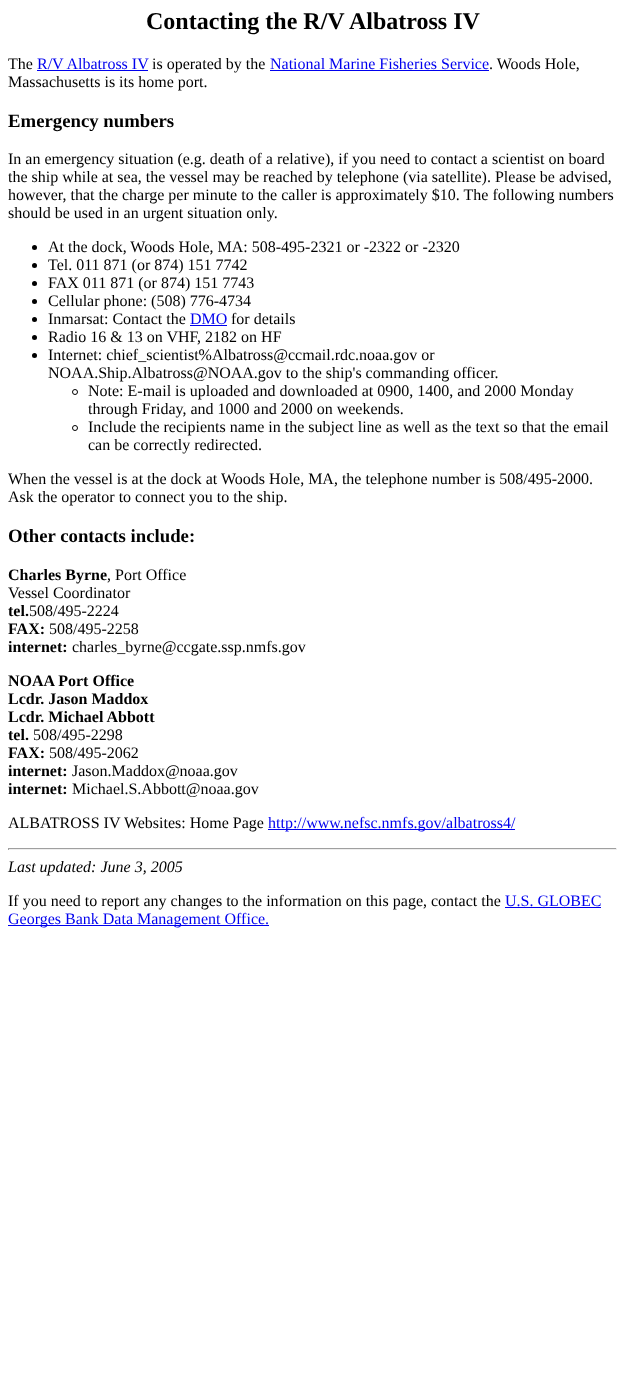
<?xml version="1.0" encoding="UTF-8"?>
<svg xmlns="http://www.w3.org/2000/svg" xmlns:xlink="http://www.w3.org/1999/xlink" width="625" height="1400">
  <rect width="100%" height="100%" fill="#ffffff" />
  <rect x="37" y="70" width="111" height="1" fill="#0000ee" />
  <rect x="270" y="70" width="219" height="1" fill="#0000ee" />
  <circle cx="34.5" cy="247.5" r="2.5" fill="#000000" />
  <circle cx="34.5" cy="265.5" r="2.5" fill="#000000" />
  <circle cx="34.5" cy="283.5" r="2.5" fill="#000000" />
  <circle cx="34.5" cy="301.5" r="2.5" fill="#000000" />
  <circle cx="34.5" cy="319.5" r="2.5" fill="#000000" />
  <rect x="190" y="325" width="37" height="1" fill="#0000ee" />
  <circle cx="34.5" cy="337.5" r="2.5" fill="#000000" />
  <circle cx="34.5" cy="355.5" r="2.5" fill="#000000" />
  <circle cx="75" cy="392" r="2.5" fill="none" stroke="#000000" />
  <circle cx="75" cy="428" r="2.5" fill="none" stroke="#000000" />
  <rect x="268" y="829" width="247" height="1" fill="#0000ee" />
  <rect x="8" y="848" width="609" height="1" fill="#9f9f9f" />
  <rect x="616" y="848" width="1" height="2" fill="#eeeeee" />
  <rect x="8" y="849" width="609" height="1" fill="#eeeeee" />
  <rect x="8" y="848" width="1" height="2" fill="#9f9f9f" />
  <rect x="505" y="907" width="96" height="1" fill="#0000ee" />
  <rect x="8" y="925" width="261" height="1" fill="#0000ee" />
  <text x="146" y="29" style="font-family: Liberation Serif; font-size: 24px; font-weight: bold; fill: #000000">Contacting the R/V Albatross IV</text>
  <text x="8" y="69" style="font-family: Liberation Serif; font-size: 16px; fill: #000000">The</text>
  <text x="37" y="69" style="font-family: Liberation Serif; font-size: 16px; fill: #0000ee">R/V Albatross IV</text>
  <text x="152" y="69" style="font-family: Liberation Serif; font-size: 16px; fill: #000000">is operated by the</text>
  <text x="270" y="69" style="font-family: Liberation Serif; font-size: 16px; fill: #0000ee">National Marine Fisheries Service</text>
  <text x="489" y="69" style="font-family: Liberation Serif; font-size: 16px; fill: #000000">. Woods Hole,</text>
  <text x="8" y="87" style="font-family: Liberation Serif; font-size: 16px; fill: #000000">Massachusetts is its home port.</text>
  <text x="8" y="127" style="font-family: Liberation Serif; font-size: 18.75px; font-weight: bold; fill: #000000">Emergency numbers</text>
  <text x="8" y="164" style="font-family: Liberation Serif; font-size: 16px; fill: #000000">In an emergency situation (e.g. death of a relative), if you need to contact a scientist on board</text>
  <text x="8" y="182" style="font-family: Liberation Serif; font-size: 16px; fill: #000000">the ship while at sea, the vessel may be reached by telephone (via satellite). Please be advised,</text>
  <text x="8" y="200" style="font-family: Liberation Serif; font-size: 16px; fill: #000000">however, that the charge per minute to the caller is approximately $10. The following numbers</text>
  <text x="8" y="218" style="font-family: Liberation Serif; font-size: 16px; fill: #000000">should be used in an urgent situation only.</text>
  <text x="48" y="252" style="font-family: Liberation Serif; font-size: 16px; fill: #000000">At the dock, Woods Hole, MA: 508-495-2321 or -2322 or -2320</text>
  <text x="48" y="270" style="font-family: Liberation Serif; font-size: 16px; fill: #000000">Tel. 011 871 (or 874) 151 7742</text>
  <text x="48" y="288" style="font-family: Liberation Serif; font-size: 16px; fill: #000000">FAX 011 871 (or 874) 151 7743</text>
  <text x="48" y="306" style="font-family: Liberation Serif; font-size: 16px; fill: #000000">Cellular phone: (508) 776-4734</text>
  <text x="48" y="324" style="font-family: Liberation Serif; font-size: 16px; fill: #000000">Inmarsat: Contact the</text>
  <text x="190" y="324" style="font-family: Liberation Serif; font-size: 16px; fill: #0000ee">DMO</text>
  <text x="231" y="324" style="font-family: Liberation Serif; font-size: 16px; fill: #000000">for details</text>
  <text x="48" y="342" style="font-family: Liberation Serif; font-size: 16px; fill: #000000">Radio 16 &amp; 13 on VHF, 2182 on HF</text>
  <text x="48" y="360" style="font-family: Liberation Serif; font-size: 16px; fill: #000000">Internet: chief_scientist%Albatross@ccmail.rdc.noaa.gov or</text>
  <text x="48" y="378" style="font-family: Liberation Serif; font-size: 16px; fill: #000000">NOAA.Ship.Albatross@NOAA.gov to the ship's commanding officer.</text>
  <text x="88" y="396" style="font-family: Liberation Serif; font-size: 16px; fill: #000000">Note: E-mail is uploaded and downloaded at 0900, 1400, and 2000 Monday</text>
  <text x="88" y="414" style="font-family: Liberation Serif; font-size: 16px; fill: #000000">through Friday, and 1000 and 2000 on weekends.</text>
  <text x="88" y="432" style="font-family: Liberation Serif; font-size: 16px; fill: #000000">Include the recipients name in the subject line as well as the text so that the email</text>
  <text x="88" y="450" style="font-family: Liberation Serif; font-size: 16px; fill: #000000">can be correctly redirected.</text>
  <text x="8" y="484" style="font-family: Liberation Serif; font-size: 16px; fill: #000000">When the vessel is at the dock at Woods Hole, MA, the telephone number is 508/495-2000.</text>
  <text x="8" y="502" style="font-family: Liberation Serif; font-size: 16px; fill: #000000">Ask the operator to connect you to the ship.</text>
  <text x="8" y="542" style="font-family: Liberation Serif; font-size: 18.75px; font-weight: bold; fill: #000000">Other contacts include:</text>
  <text x="8" y="580" style="font-family: Liberation Serif; font-size: 16px; font-weight: bold; fill: #000000">Charles Byrne</text>
  <text x="107" y="580" style="font-family: Liberation Serif; font-size: 16px; fill: #000000">, Port Office</text>
  <text x="8" y="598" style="font-family: Liberation Serif; font-size: 16px; fill: #000000">Vessel Coordinator</text>
  <text x="8" y="616" style="font-family: Liberation Serif; font-size: 16px; font-weight: bold; fill: #000000">tel.</text>
  <text x="29" y="616" style="font-family: Liberation Serif; font-size: 16px; fill: #000000">508/495-2224</text>
  <text x="8" y="634" style="font-family: Liberation Serif; font-size: 16px; font-weight: bold; fill: #000000">FAX:</text>
  <text x="49" y="634" style="font-family: Liberation Serif; font-size: 16px; fill: #000000">508/495-2258</text>
  <text x="8" y="652" style="font-family: Liberation Serif; font-size: 16px; font-weight: bold; fill: #000000">internet:</text>
  <text x="72" y="652" style="font-family: Liberation Serif; font-size: 16px; fill: #000000">charles_byrne@ccgate.ssp.nmfs.gov</text>
  <text x="8" y="686" style="font-family: Liberation Serif; font-size: 16px; font-weight: bold; fill: #000000">NOAA Port Office</text>
  <text x="8" y="704" style="font-family: Liberation Serif; font-size: 16px; font-weight: bold; fill: #000000">Lcdr. Jason Maddox</text>
  <text x="8" y="722" style="font-family: Liberation Serif; font-size: 16px; font-weight: bold; fill: #000000">Lcdr. Michael Abbott</text>
  <text x="8" y="740" style="font-family: Liberation Serif; font-size: 16px; font-weight: bold; fill: #000000">tel.</text>
  <text x="33" y="740" style="font-family: Liberation Serif; font-size: 16px; fill: #000000">508/495-2298</text>
  <text x="8" y="758" style="font-family: Liberation Serif; font-size: 16px; font-weight: bold; fill: #000000">FAX:</text>
  <text x="49" y="758" style="font-family: Liberation Serif; font-size: 16px; fill: #000000">508/495-2062</text>
  <text x="8" y="776" style="font-family: Liberation Serif; font-size: 16px; font-weight: bold; fill: #000000">internet:</text>
  <text x="72" y="776" style="font-family: Liberation Serif; font-size: 16px; fill: #000000">Jason.Maddox@noaa.gov</text>
  <text x="8" y="794" style="font-family: Liberation Serif; font-size: 16px; font-weight: bold; fill: #000000">internet:</text>
  <text x="72" y="794" style="font-family: Liberation Serif; font-size: 16px; fill: #000000">Michael.S.Abbott@noaa.gov</text>
  <text x="8" y="828" style="font-family: Liberation Serif; font-size: 16px; fill: #000000">ALBATROSS IV Websites: Home Page</text>
  <text x="268" y="828" style="font-family: Liberation Serif; font-size: 16px; fill: #0000ee">http://www.nefsc.nmfs.gov/albatross4/</text>
  <text x="8" y="872" style="font-family: Liberation Serif; font-size: 16px; font-style: italic; fill: #000000">Last updated: June 3, 2005</text>
  <text x="8" y="906" style="font-family: Liberation Serif; font-size: 16px; fill: #000000">If you need to report any changes to the information on this page, contact the</text>
  <text x="505" y="906" style="font-family: Liberation Serif; font-size: 16px; fill: #0000ee">U.S. GLOBEC</text>
  <text x="8" y="924" style="font-family: Liberation Serif; font-size: 16px; fill: #0000ee">Georges Bank Data Management Office.</text>
</svg>
